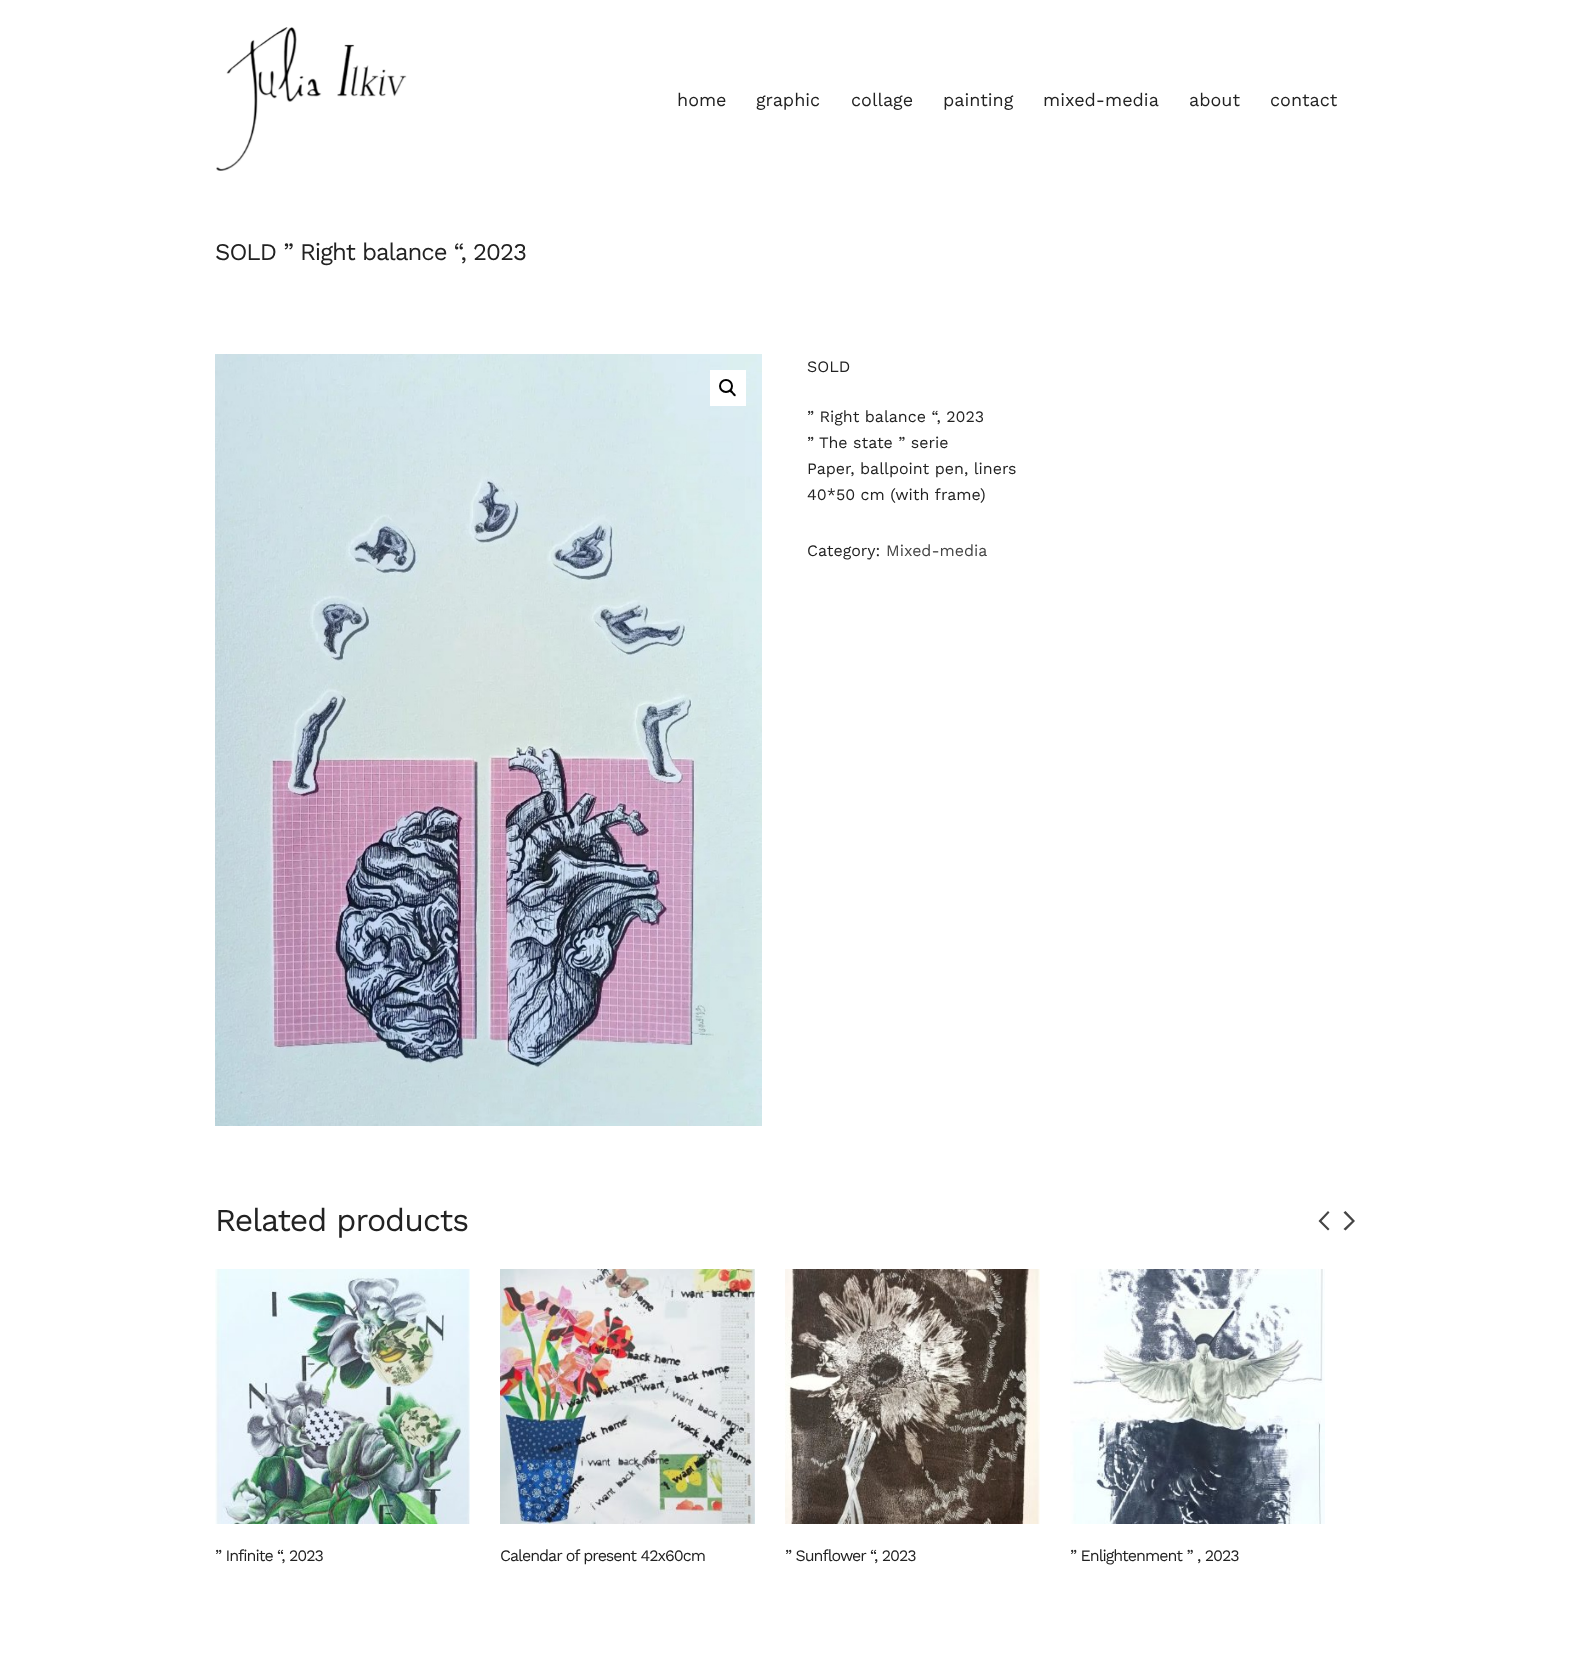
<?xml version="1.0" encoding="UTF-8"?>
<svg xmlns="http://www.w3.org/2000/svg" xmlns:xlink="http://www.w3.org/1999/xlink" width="1569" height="1659">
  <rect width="100%" height="100%" fill="#ffffff" />
  <image x="216" y="27" width="191" height="144" xlink:href="image1.png" />
  <image x="215" y="354" width="547" height="772" xlink:href="image2.png" />
  <rect x="710" y="370" width="36" height="36" fill="#ffffff" />
  <circle cx="726" cy="386" r="6" fill="none" stroke="#000000" stroke-width="2" />
  <path d="M 730 390 c 1 -1 3 1.5 3.5 2.5 c 0.5 0.5 3 2 2 3.5 c -1 1 -3 -1.5 -3.5 -2.5 c -0.5 -0.5 -3.5 -2 -2 -3.5 z" fill="#000000" />
  <path d="M 1328 1230.5 l -9.5 -9.5 l 9.5 -10 l 1.5 1.5 l -8 8.5 l 8 8 z m 17.5 0 l -2 -1.5 l 8.5 -8 l -8.5 -8.5 l 2 -1.5 l 9.5 10 z" fill="#444444" />
  <image x="215" y="1269" width="255" height="255" xlink:href="image3.png" />
  <image x="500" y="1269" width="255" height="255" xlink:href="image4.png" />
  <image x="785" y="1269" width="255" height="255" xlink:href="image5.png" />
  <image x="1070" y="1269" width="255" height="255" xlink:href="image6.png" />
  <text x="677" y="106" style="font-family: Work Sans; font-size: 18px; fill: #222222">home</text>
  <text x="756" y="106" style="font-family: Work Sans; font-size: 18px; fill: #222222">graphic</text>
  <text x="851" y="106" style="font-family: Work Sans; font-size: 18px; fill: #222222">collage</text>
  <text x="943" y="106" style="font-family: Work Sans; font-size: 18px; fill: #222222">painting</text>
  <text x="1043" y="106" style="font-family: Work Sans; font-size: 18px; fill: #222222">mixed-media</text>
  <text x="1189" y="106" style="font-family: Work Sans; font-size: 18px; fill: #222222">about</text>
  <text x="1270" y="106" style="font-family: Work Sans; font-size: 18px; fill: #222222">contact</text>
  <text x="215" y="260" style="font-family: Work Sans; font-size: 24px; letter-spacing: -1px; fill: #222222">SOLD ” Right balance “, 2023</text>
  <text x="807" y="372" style="font-family: Work Sans; font-size: 16px; fill: #222222">SOLD</text>
  <text x="807" y="422" style="font-family: Work Sans; font-size: 16px; fill: #222222">” Right balance “, 2023</text>
  <text x="807" y="448" style="font-family: Work Sans; font-size: 16px; fill: #222222">” The state ” serie</text>
  <text x="807" y="474" style="font-family: Work Sans; font-size: 16px; fill: #222222">Paper, ballpoint pen, liners</text>
  <text x="807" y="500" style="font-family: Work Sans; font-size: 16px; fill: #222222">40*50 cm (with frame)</text>
  <text x="807" y="556" style="font-family: Work Sans; font-size: 16px; fill: #222222">Category:</text>
  <text x="886" y="556" style="font-family: Work Sans; font-size: 16px; fill: #444444">Mixed-media</text>
  <text x="215" y="1231" style="font-family: Work Sans; font-size: 32px; letter-spacing: -1px; fill: #222222">Related products</text>
  <text x="215" y="1561" style="font-family: Work Sans; font-size: 16px; letter-spacing: -1px; fill: #222222">” Infinite “, 2023</text>
  <text x="500" y="1561" style="font-family: Work Sans; font-size: 16px; letter-spacing: -1px; fill: #222222">Calendar of present 42x60cm</text>
  <text x="785" y="1561" style="font-family: Work Sans; font-size: 16px; letter-spacing: -1px; fill: #222222">” Sunflower “, 2023</text>
  <text x="1070" y="1561" style="font-family: Work Sans; font-size: 16px; letter-spacing: -1px; fill: #222222">” Enlightenment ” , 2023</text>
</svg>
